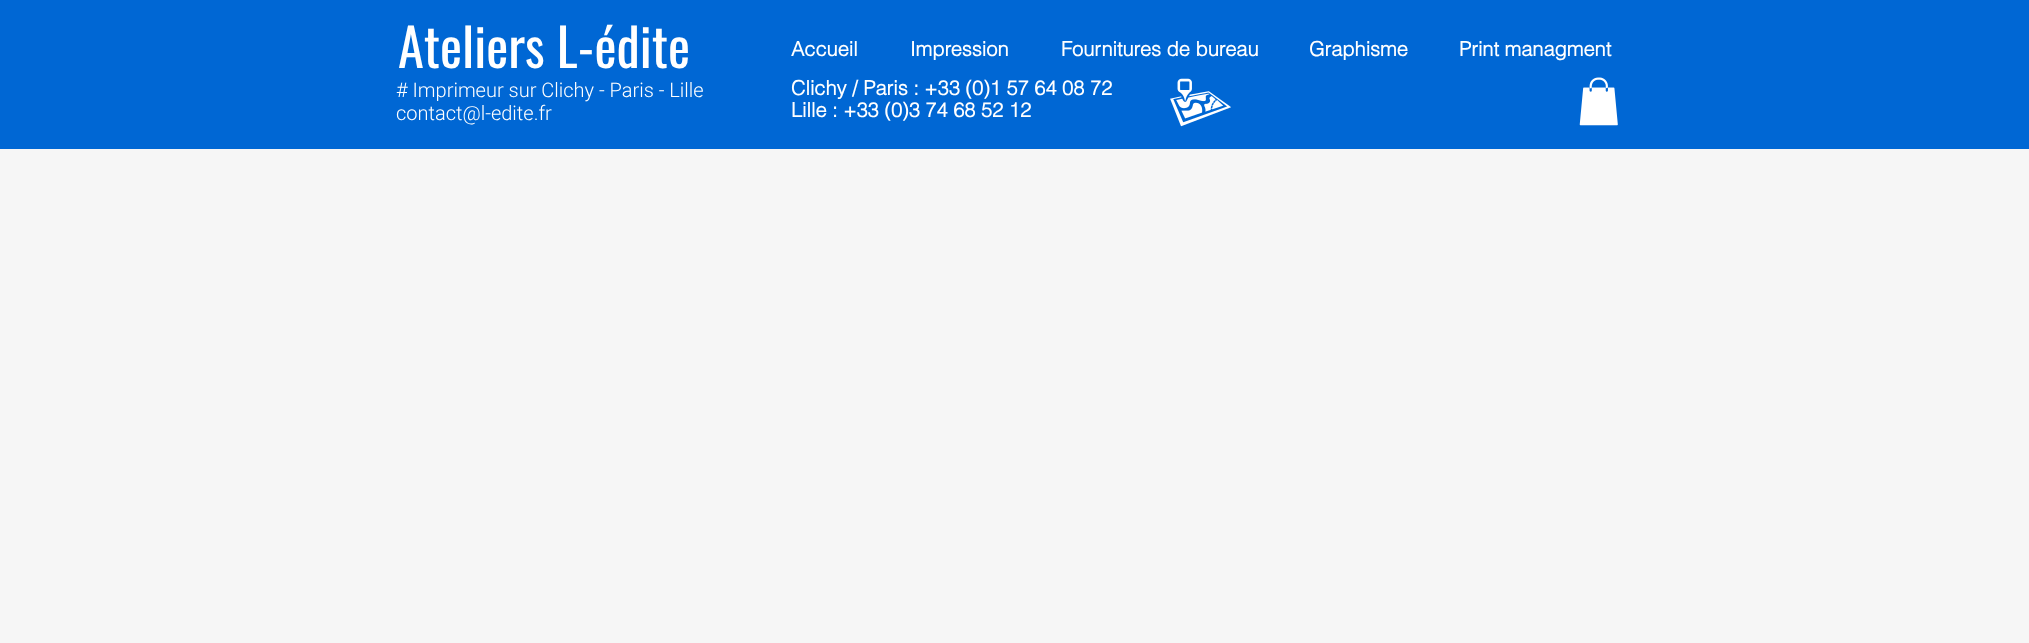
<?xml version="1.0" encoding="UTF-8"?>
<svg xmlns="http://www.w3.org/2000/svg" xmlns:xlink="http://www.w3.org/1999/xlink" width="2029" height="643">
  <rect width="100%" height="100%" fill="#f6f6f6" />
  <rect width="2029" height="149" fill="#0067d4" />
  <image x="1170" y="78" width="61" height="49" xlink:href="image1.png" />
  <image x="1579" y="77" width="39" height="49" xlink:href="image2.png" />
  <text x="398" y="68" style="font-family: Oswald; font-size: 52.5px; fill: #ffffff">Ateliers L-édite</text>
  <text x="791" y="56" style="font-family: helvetica; font-size: 20px; font-weight: bold; fill: #ffffff">Accueil</text>
  <text x="910" y="56" style="font-family: helvetica; font-size: 20px; font-weight: bold; fill: #ffffff">Impression</text>
  <text x="1061" y="56" style="font-family: helvetica; font-size: 20px; font-weight: bold; fill: #ffffff">Fournitures de bureau</text>
  <text x="1309" y="56" style="font-family: helvetica; font-size: 20px; font-weight: bold; fill: #ffffff">Graphisme</text>
  <text x="1459" y="56" style="font-family: helvetica; font-size: 20px; font-weight: bold; fill: #ffffff">Print managment</text>
  <text x="396" y="97" style="font-family: Heebo; font-size: 20px; font-weight: 300; fill: #ffffff"># Imprimeur sur Clichy - Paris - Lille</text>
  <text x="396" y="120" style="font-family: Heebo; font-size: 20px; font-weight: 300; fill: #ffffff">contact@l-edite.fr</text>
  <text x="791" y="95" style="font-family: helvetica; font-size: 20px; font-weight: bold; fill: #ffffff">Clichy / Paris : +33 (0)1 57 64 08 72</text>
  <text x="791" y="117" style="font-family: helvetica; font-size: 20px; font-weight: bold; fill: #ffffff">Lille : +33 (0)3 74 68 52 12</text>
</svg>
